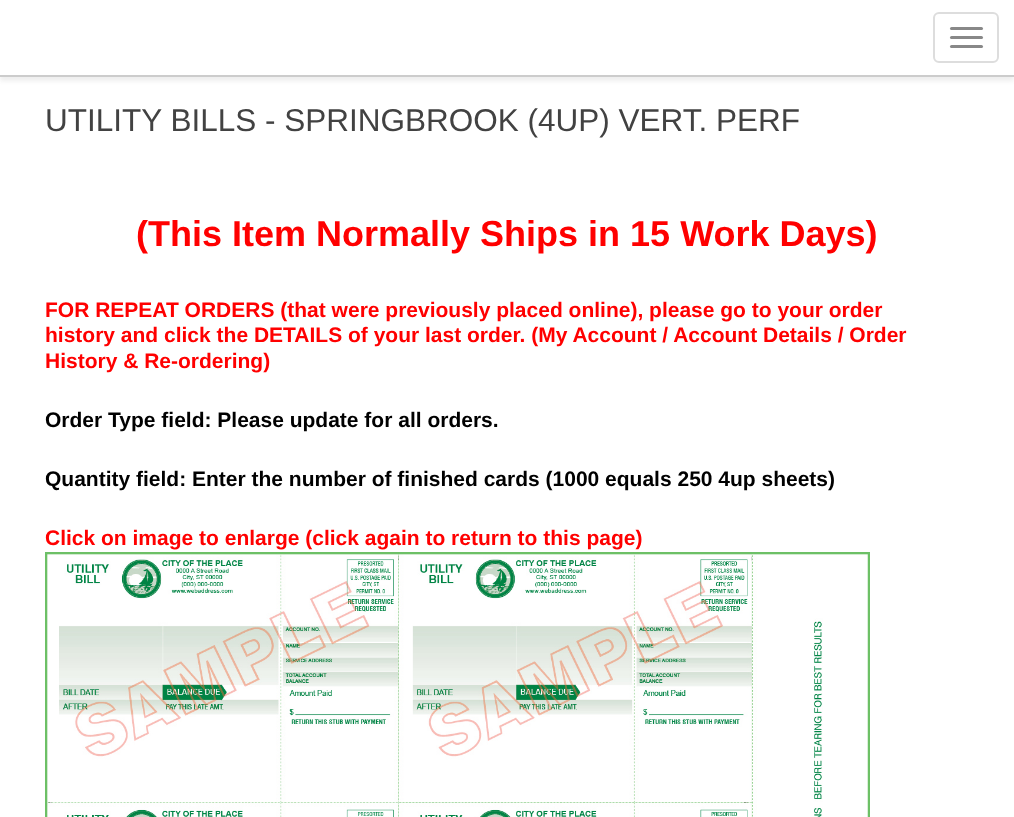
<?xml version="1.0" encoding="UTF-8"?>
<svg xmlns="http://www.w3.org/2000/svg" xmlns:xlink="http://www.w3.org/1999/xlink" width="1014" height="817">
  <defs>
    <clipPath id="clip1"><rect x="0" y="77" width="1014" height="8" /></clipPath>
  </defs>
  <rect width="100%" height="100%" fill="#ffffff" />
  <g clip-path="url(#clip1)">
    <rect y="5" width="1014" height="76" fill="#eeeeee" filter="blur(2px)" />
  </g>
  <rect y="75" width="1014" height="2" fill="#cccccc" />
  <rect x="934" y="13" width="64" height="49" rx="5" fill="none" stroke="#dddddd" stroke-width="2" />
  <rect x="950" y="27" width="33" height="3" rx="1.5" fill="#888888" />
  <rect x="950" y="36" width="33" height="3" rx="1.5" fill="#888888" />
  <rect x="950" y="45" width="33" height="3" rx="1.5" fill="#888888" />
  <image x="45" y="552" width="825" height="265" xlink:href="image1.png" />
  <text x="45" y="131" style="font-family: Liberation Sans; font-size: 31.5px; fill: #424242">UTILITY BILLS - SPRINGBROOK (4UP) VERT. PERF</text>
  <text x="136" y="246" style="font-family: Liberation Sans; font-size: 36px; font-weight: bold; fill: #ff0000">(This Item Normally Ships in 15 Work Days)</text>
  <text x="45" y="317" style="font-family: Liberation Sans; font-size: 21px; font-weight: bold; fill: #ff0000">FOR REPEAT ORDERS (that were previously placed online), please go to your order</text>
  <text x="45" y="342" style="font-family: Liberation Sans; font-size: 21px; font-weight: bold; fill: #ff0000">history and click the DETAILS of your last order. (My Account / Account Details / Order</text>
  <text x="45" y="368" style="font-family: Liberation Sans; font-size: 21px; font-weight: bold; fill: #ff0000">History &amp; Re-ordering)</text>
  <text x="45" y="427" style="font-family: Liberation Sans; font-size: 21px; font-weight: bold; fill: #000000">Order Type field: Please update for all orders.</text>
  <text x="45" y="486" style="font-family: Liberation Sans; font-size: 21px; font-weight: bold; fill: #000000">Quantity field: Enter the number of finished cards (1000 equals 250 4up sheets)</text>
  <text x="45" y="545" style="font-family: Liberation Sans; font-size: 21px; font-weight: bold; fill: #ff0000">Click on image to enlarge (click again to return to this page)</text>
</svg>
